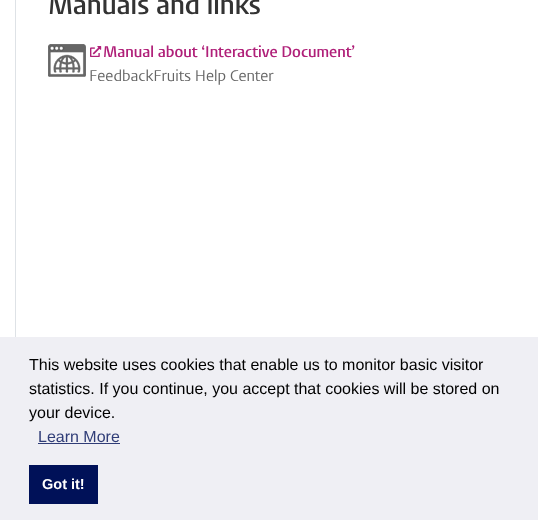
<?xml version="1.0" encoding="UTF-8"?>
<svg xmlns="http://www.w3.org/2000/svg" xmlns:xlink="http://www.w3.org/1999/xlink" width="538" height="520">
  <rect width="100%" height="100%" fill="#ffffff" />
  <rect x="15" width="1" height="337" fill="#dee2e6" />
  <image x="48" y="44" width="38" height="33" xlink:href="image1.png" />
  <image x="90" y="46" width="12" height="11" xlink:href="image2.png" />
  <rect y="337" width="538" height="183" fill="#efeff4" />
  <rect x="38" y="443" width="82" height="1" fill="#303d77" />
  <rect x="29" y="465" width="69" height="39" fill="#001158" />
  <text x="48" y="14" style="font-family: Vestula; font-size: 28px; font-weight: 600; fill: #333333">Manuals and links</text>
  <text x="103" y="57" style="font-family: Vestula; font-size: 16px; font-weight: 600; fill: #b02079">Manual about ‘Interactive Document’</text>
  <text x="89" y="81" style="font-family: Vestula; font-size: 16px; fill: #666666">FeedbackFruits Help Center</text>
  <text x="29" y="370" style="font-family: Liberation Sans; font-size: 16px; fill: #000000">This website uses cookies that enable us to monitor basic visitor</text>
  <text x="29" y="394" style="font-family: Liberation Sans; font-size: 16px; fill: #000000">statistics. If you continue, you accept that cookies will be stored on</text>
  <text x="29" y="418" style="font-family: Liberation Sans; font-size: 16px; fill: #000000">your device.</text>
  <text x="38" y="442" style="font-family: Liberation Sans; font-size: 16px; fill: #303d77">Learn More</text>
  <text x="42" y="489" style="font-family: Liberation Sans; font-size: 14.5px; font-weight: bold; fill: #ffffff">Got it!</text>
</svg>
